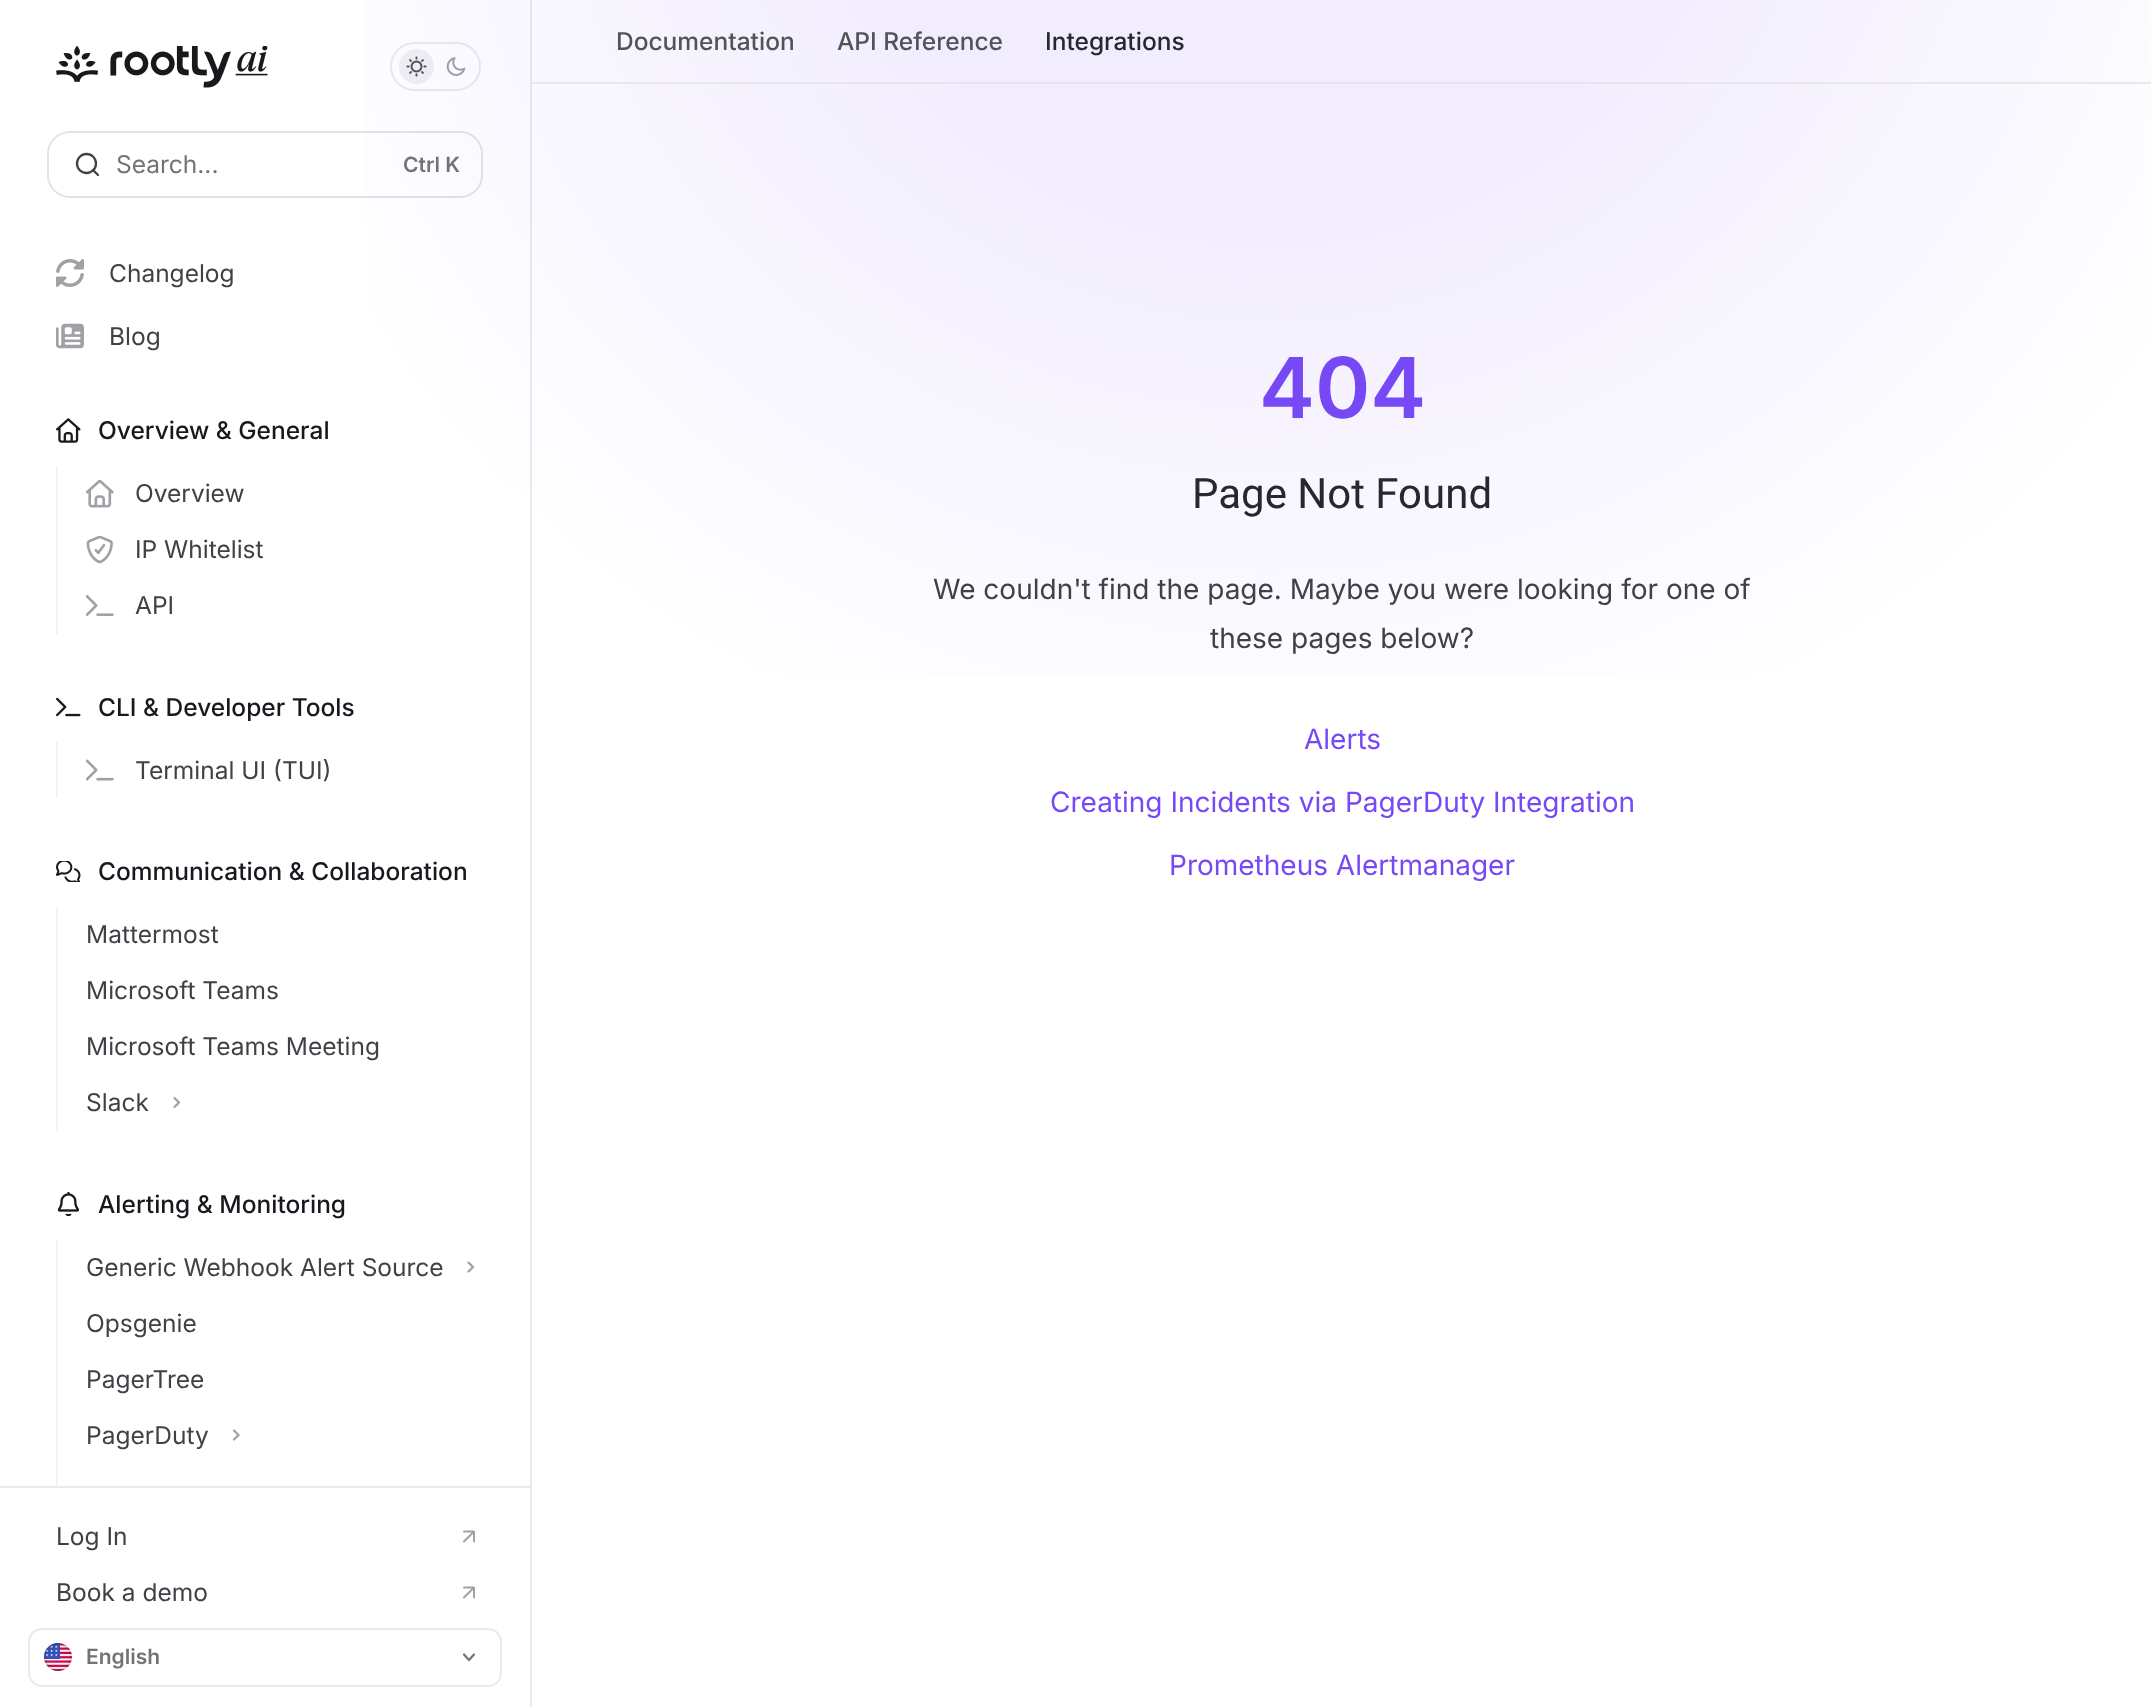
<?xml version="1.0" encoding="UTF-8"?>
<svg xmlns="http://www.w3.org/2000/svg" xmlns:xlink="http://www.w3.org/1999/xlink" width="2151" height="1707">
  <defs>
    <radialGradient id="g1" gradientUnits="userSpaceOnUse" cx="0" cy="0" r="1" gradientTransform="matrix(1068 0 0 1022 1270 -210)"><stop offset="0.39" stop-color="#7748f6" stop-opacity="0.1" /><stop offset="1" stop-color="#7748f6" stop-opacity="0" /></radialGradient>
  </defs>
  <rect width="100%" height="100%" fill="#ffffff" />
  <rect x="530" width="2" height="1707" fill="#ebe9ee" />
  <rect x="391" y="43" width="89" height="47" rx="23.5" fill="none" stroke="#ebe9ee" stroke-width="2" />
  <circle cx="416.5" cy="66.5" r="17.5" fill="#f1f0f3" />
  <image x="406" y="56" width="21" height="21" xlink:href="image2.png" />
  <image x="446" y="57" width="20" height="19" xlink:href="image3.png" />
  <rect x="48" y="132" width="434" height="65" rx="22" fill="none" stroke="#e3e3e4" stroke-width="2" />
  <rect x="49" y="133" width="432" height="63" rx="21" fill="#ffffff" />
  <rect x="365" width="1786" height="677" fill="url(#g1)" />
  <image x="56" y="46" width="212" height="42" xlink:href="image1.png" />
  <circle cx="86.5" cy="163.5" r="9.5" fill="none" stroke="#424046" stroke-width="2.3" />
  <path d="M 98 175 l -5 -5" fill="none" stroke="#424046" stroke-width="2.3" stroke-linecap="round" stroke-linejoin="round" />
  <image x="56" y="259" width="28" height="28" xlink:href="image4.png" />
  <image x="56" y="323" width="28" height="26" xlink:href="image5.png" />
  <image x="56" y="418" width="25" height="25" xlink:href="image6.png" />
  <rect x="56" y="466" width="2" height="168" fill="#f3f3f3" />
  <image x="86" y="480" width="28" height="28" xlink:href="image7.png" />
  <image x="86" y="536" width="27" height="28" xlink:href="image8.png" />
  <image x="86" y="595" width="28" height="21" xlink:href="image9.png" />
  <image x="56" y="697" width="25" height="20" xlink:href="image10.png" />
  <rect x="56" y="742" width="2" height="56" fill="#f3f3f3" />
  <image x="86" y="759" width="28" height="22" xlink:href="image11.png" />
  <image x="56" y="861" width="25" height="21" xlink:href="image12.png" />
  <rect x="56" y="907" width="2" height="168" fill="#f3f3f3" />
  <rect x="56" y="1075" width="2" height="56" fill="#f3f3f3" />
  <path d="M 174.5 1098 l 4.5 4.5 l -4.5 4.5" fill="none" stroke="#a2a0a6" stroke-width="2.2" stroke-linecap="round" />
  <image x="58" y="1192" width="21" height="24" xlink:href="image13.png" />
  <rect x="56" y="1239" width="2" height="112" fill="#f3f3f3" />
  <path d="M 468.5 1262.5 l 4.5 4.5 l -4.5 4.5" fill="none" stroke="#a2a0a6" stroke-width="2.2" stroke-linecap="round" />
  <rect x="56" y="1351" width="2" height="135" fill="#f3f3f3" />
  <path d="M 234 1430.5 l 4.5 4.5 l -4.5 4.5" fill="none" stroke="#a2a0a6" stroke-width="2.2" stroke-linecap="round" />
  <rect y="1486" width="530" height="2" fill="#ebe9ee" />
  <path d="M 464 1531.5 h 10 v 10 m -10 0 l 10 -10" fill="none" stroke="#a2a0a6" stroke-width="2" stroke-linecap="round" stroke-linejoin="round" />
  <path d="M 464 1587.5 h 10 v 10 m -10 0 l 10 -10" fill="none" stroke="#a2a0a6" stroke-width="2" stroke-linecap="round" stroke-linejoin="round" />
  <rect x="29" y="1629" width="472" height="57" rx="13" fill="none" stroke="#ebe9ee" stroke-width="2" />
  <image x="44" y="1643" width="28" height="28" xlink:href="image14.png" />
  <circle cx="58" cy="1657" r="14" fill="#7748f6" fill-opacity="0.1" />
  <circle cx="58" cy="1657" r="13" fill="none" stroke="#000000" stroke-opacity="0.1" stroke-width="2" />
  <path d="M 464 1654.5 l 5 5.5 l 5 -5.5" fill="none" stroke="#737277" stroke-width="2.2" stroke-linecap="round" stroke-linejoin="round" />
  <rect x="532" y="82" width="1619" height="2" fill="#e2e0e6" fill-opacity="0.7" />
  <text x="116" y="173" style="font-family: Inter; font-size: 24.5px; fill: #737277">Search...</text>
  <text x="403" y="172" style="font-family: Inter; font-size: 21px; font-weight: 600; fill: #737277">Ctrl K</text>
  <text x="109" y="282" style="font-family: Inter; font-size: 24.5px; fill: #424046">Changelog</text>
  <text x="109" y="345" style="font-family: Inter; font-size: 24.5px; fill: #424046">Blog</text>
  <text x="98" y="439" style="font-family: Inter; font-size: 24.5px; font-weight: 500; fill: #1a181e">Overview &amp; General</text>
  <text x="135" y="502" style="font-family: Inter; font-size: 24.5px; fill: #424046">Overview</text>
  <text x="135" y="558" style="font-family: Inter; font-size: 24.5px; fill: #424046">IP Whitelist</text>
  <text x="135" y="614" style="font-family: Inter; font-size: 24.5px; fill: #424046">API</text>
  <text x="98" y="716" style="font-family: Inter; font-size: 24.5px; font-weight: 500; fill: #1a181e">CLI &amp; Developer Tools</text>
  <text x="135" y="779" style="font-family: Inter; font-size: 24.5px; fill: #424046">Terminal UI (TUI)</text>
  <text x="98" y="880" style="font-family: Inter; font-size: 24.5px; font-weight: 500; fill: #1a181e">Communication &amp; Collaboration</text>
  <text x="86" y="943" style="font-family: Inter; font-size: 24.5px; fill: #424046">Mattermost</text>
  <text x="86" y="999" style="font-family: Inter; font-size: 24.5px; fill: #424046">Microsoft Teams</text>
  <text x="86" y="1055" style="font-family: Inter; font-size: 24.5px; fill: #424046">Microsoft Teams Meeting</text>
  <text x="86" y="1111" style="font-family: Inter; font-size: 24.5px; fill: #424046">Slack</text>
  <text x="98" y="1213" style="font-family: Inter; font-size: 24.5px; font-weight: 500; fill: #1a181e">Alerting &amp; Monitoring</text>
  <text x="86" y="1276" style="font-family: Inter; font-size: 24.5px; fill: #424046">Generic Webhook Alert Source</text>
  <text x="86" y="1332" style="font-family: Inter; font-size: 24.5px; fill: #424046">Opsgenie</text>
  <text x="86" y="1388" style="font-family: Inter; font-size: 24.5px; fill: #424046">PagerTree</text>
  <text x="86" y="1444" style="font-family: Inter; font-size: 24.5px; fill: #424046">PagerDuty</text>
  <text x="56" y="1545" style="font-family: Inter; font-size: 24.5px; fill: #424046">Log In</text>
  <text x="56" y="1601" style="font-family: Inter; font-size: 24.5px; fill: #424046">Book a demo</text>
  <text x="86" y="1664" style="font-family: Inter; font-size: 21px; font-weight: 600; fill: #737277">English</text>
  <text x="616" y="50" style="font-family: Inter; font-size: 24.5px; font-weight: 500; fill: #535257">Documentation</text>
  <text x="837" y="50" style="font-family: Inter; font-size: 24.5px; font-weight: 500; fill: #535257">API Reference</text>
  <text x="1045" y="50" style="font-family: Inter; font-size: 24.5px; font-weight: 500; fill: #28272c">Integrations</text>
  <text x="1259" y="418" style="font-family: Inter; font-size: 84px; font-weight: 600; fill: #7748f6">404</text>
  <text x="1192" y="508" style="font-family: Roboto; font-size: 42px; fill: #28272c">Page Not Found</text>
  <text x="933" y="599" style="font-family: Inter; font-size: 28px; fill: #424046">We couldn't find the page. Maybe you were looking for one of</text>
  <text x="1210" y="648" style="font-family: Inter; font-size: 28px; fill: #424046">these pages below?</text>
  <text x="1304" y="749" style="font-family: Inter; font-size: 28px; fill: #7748f6">Alerts</text>
  <text x="1050" y="812" style="font-family: Inter; font-size: 28px; fill: #7748f6">Creating Incidents via PagerDuty Integration</text>
  <text x="1169" y="875" style="font-family: Inter; font-size: 28px; fill: #7748f6">Prometheus Alertmanager</text>
</svg>
